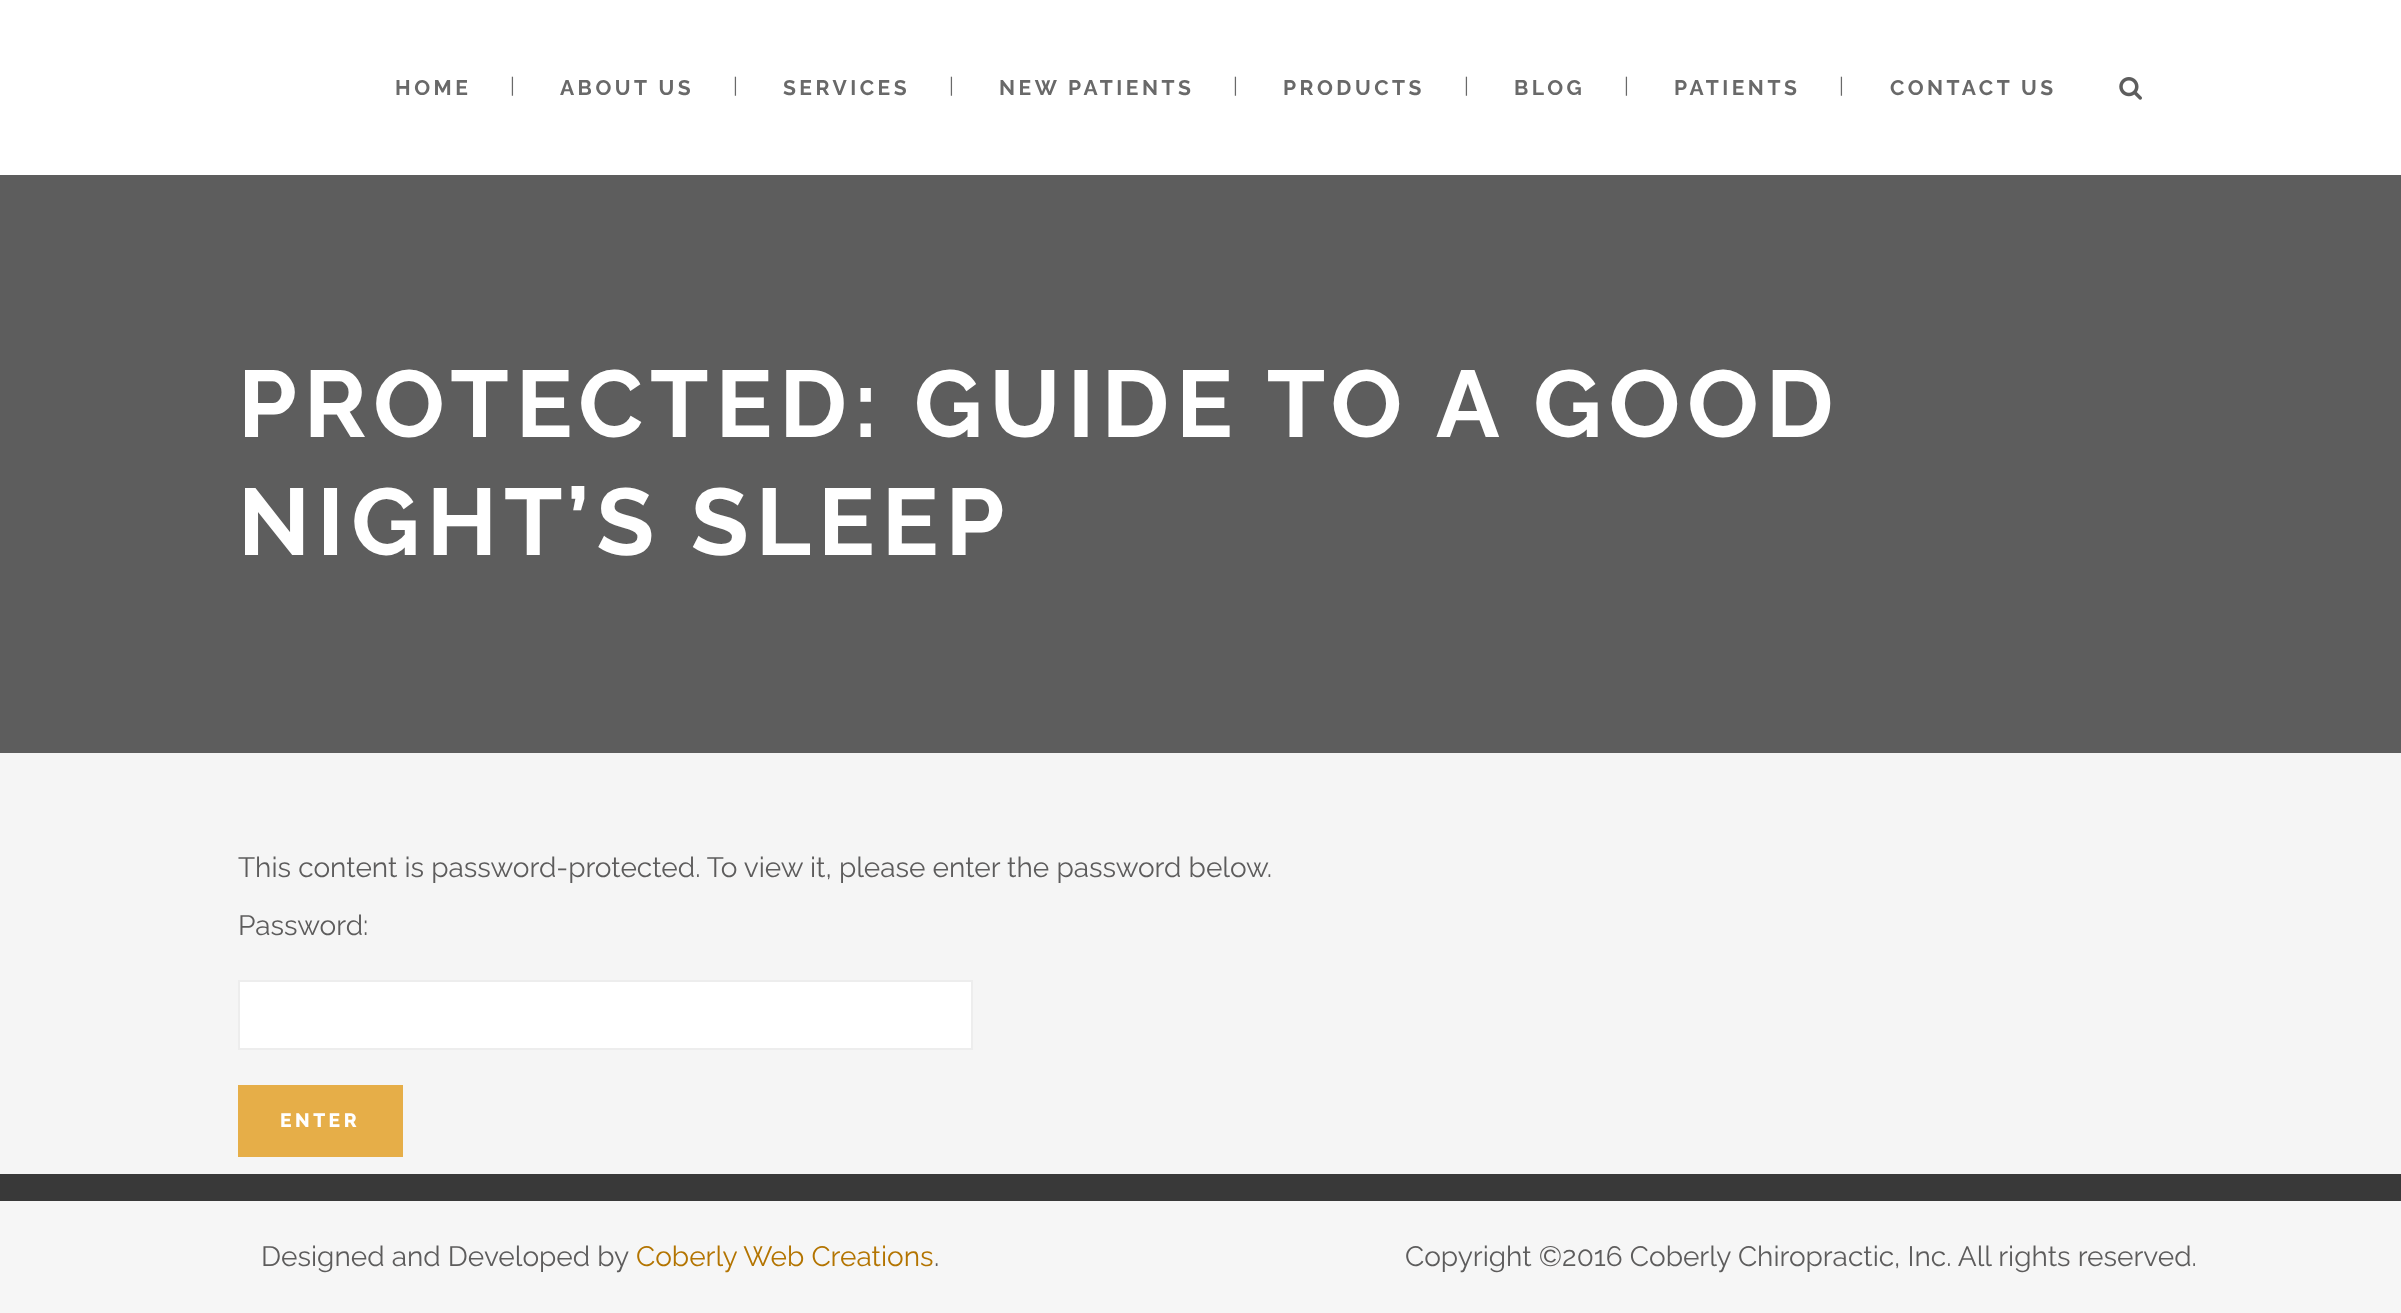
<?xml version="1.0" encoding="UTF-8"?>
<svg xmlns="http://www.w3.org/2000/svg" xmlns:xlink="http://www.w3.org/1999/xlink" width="2401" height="1313">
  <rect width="100%" height="100%" fill="#393939" />
  <rect width="2401" height="175" fill="#ffffff" />
  <image x="2119" y="77" width="23" height="23" xlink:href="image1.png" />
  <rect y="753" width="2401" height="421" fill="#f5f5f5" />
  <rect y="175" width="2401" height="578" fill="#5d5d5d" />
  <rect x="239" y="981" width="733" height="68" fill="#ffffff" stroke="#ededed" stroke-width="2" />
  <rect x="238" y="1085" width="165" height="72" fill="#e6ae48" />
  <rect y="1201" width="2401" height="112" fill="#f6f6f6" />
  <text x="395" y="95" style="font-family: Raleway; font-size: 21px; font-weight: bold; letter-spacing: 3.5px; fill: #696969">HOME</text>
  <text x="510" y="93" style="font-family: Raleway; font-size: 21px; fill: #696969">|</text>
  <text x="560" y="95" style="font-family: Raleway; font-size: 21px; font-weight: bold; letter-spacing: 3.5px; fill: #696969">ABOUT US</text>
  <text x="733" y="93" style="font-family: Raleway; font-size: 21px; fill: #696969">|</text>
  <text x="783" y="95" style="font-family: Raleway; font-size: 21px; font-weight: bold; letter-spacing: 3.5px; fill: #696969">SERVICES</text>
  <text x="949" y="93" style="font-family: Raleway; font-size: 21px; fill: #696969">|</text>
  <text x="999" y="95" style="font-family: Raleway; font-size: 21px; font-weight: bold; letter-spacing: 3.5px; fill: #696969">NEW PATIENTS</text>
  <text x="1233" y="93" style="font-family: Raleway; font-size: 21px; fill: #696969">|</text>
  <text x="1283" y="95" style="font-family: Raleway; font-size: 21px; font-weight: bold; letter-spacing: 3.5px; fill: #696969">PRODUCTS</text>
  <text x="1464" y="93" style="font-family: Raleway; font-size: 21px; fill: #696969">|</text>
  <text x="1514" y="95" style="font-family: Raleway; font-size: 21px; font-weight: bold; letter-spacing: 3.5px; fill: #696969">BLOG</text>
  <text x="1624" y="93" style="font-family: Raleway; font-size: 21px; fill: #696969">|</text>
  <text x="1674" y="95" style="font-family: Raleway; font-size: 21px; font-weight: bold; letter-spacing: 3.5px; fill: #696969">PATIENTS</text>
  <text x="1839" y="93" style="font-family: Raleway; font-size: 21px; fill: #696969">|</text>
  <text x="1890" y="95" style="font-family: Raleway; font-size: 21px; font-weight: bold; letter-spacing: 3.5px; fill: #696969">CONTACT US</text>
  <text x="238" y="437" style="font-family: Raleway; font-size: 94.5px; font-weight: bold; letter-spacing: 7px; fill: #ffffff">PROTECTED: GUIDE TO A GOOD</text>
  <text x="238" y="555" style="font-family: Raleway; font-size: 94.5px; font-weight: bold; letter-spacing: 7px; fill: #ffffff">NIGHT’S SLEEP</text>
  <text x="238" y="877" style="font-family: Raleway; font-size: 28px; fill: #5d5c5c">This content is password-protected. To view it, please enter the password below.</text>
  <text x="238" y="935" style="font-family: Raleway; font-size: 28px; fill: #5d5c5c">Password:</text>
  <text x="280" y="1127" style="font-family: Raleway; font-size: 19.25px; font-weight: 800; letter-spacing: 3.5px; fill: #ffffff">ENTER</text>
  <text x="261" y="1266" style="font-family: Raleway; font-size: 28px; fill: #5d5c5c">Designed and Developed by</text>
  <text x="636" y="1266" style="font-family: Raleway; font-size: 28px; fill: #b37400">Coberly Web Creations</text>
  <text x="934" y="1266" style="font-family: Raleway; font-size: 28px; fill: #5d5c5c">.</text>
  <text x="1405" y="1266" style="font-family: Raleway; font-size: 28px; fill: #5d5c5c">Copyright ©2016 Coberly Chiropractic, Inc. All rights reserved.</text>
</svg>
